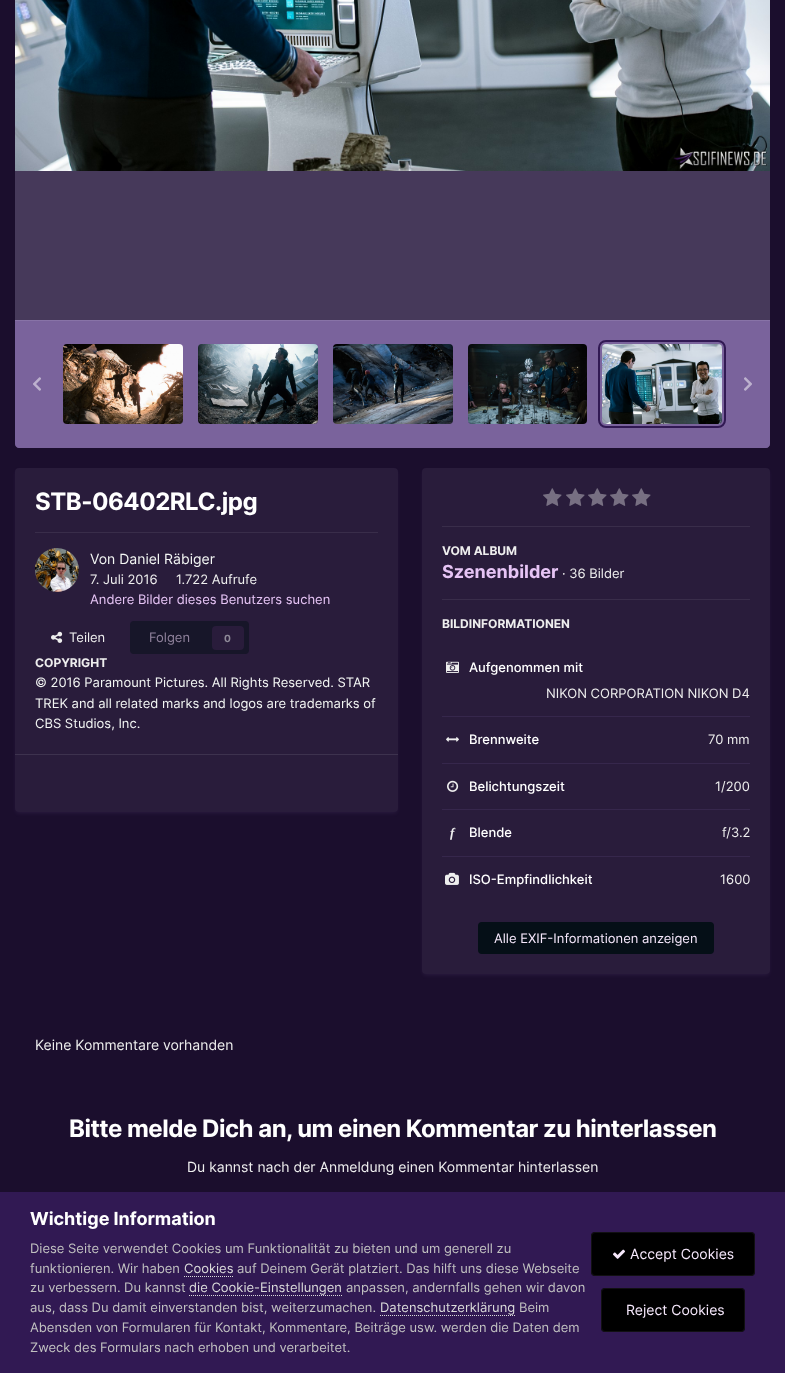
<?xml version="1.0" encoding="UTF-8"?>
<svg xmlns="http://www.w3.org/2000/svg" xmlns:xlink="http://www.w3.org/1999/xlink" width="785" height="1373">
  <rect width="100%" height="100%" fill="#1b0e2d" />
  <rect x="15" y="171" width="755" height="149" fill="#46395a" />
  <image x="15" y="0" width="755" height="171" xlink:href="image1.png" />
  <path d="M 15 320 h 755 v 124 c 0 2 -2 4 -4 4 h -747 c -2 0 -4 -2 -4 -4 z" fill="#af8ee0" />
  <path d="M 15 320 h 755 v 124 c 0 2 -2 4 -4 4 h -747 c -2 0 -4 -2 -4 -4 z" fill="#000000" fill-opacity="0.3" />
  <rect x="15" y="320" width="755" height="1" fill="#8873a7" />
  <image x="63" y="344" width="120" height="80" xlink:href="image2.png" />
  <image x="198" y="344" width="120" height="80" xlink:href="image3.png" />
  <image x="333" y="344" width="120" height="80" xlink:href="image4.png" />
  <image x="468" y="344" width="119" height="80" xlink:href="image5.png" />
  <rect x="599" y="341" width="126" height="86" rx="7" fill="none" stroke="#311953" stroke-width="2" />
  <image x="602" y="344" width="120" height="80" xlink:href="image6.png" />
  <image x="33" y="377" width="8" height="14" xlink:href="image7.png" />
  <image x="744" y="377" width="8" height="14" xlink:href="image8.png" />
  <rect x="16" y="471" width="381" height="342" rx="3" fill="#af8ee0" fill-opacity="0.1" filter="blur(2px)" />
  <rect x="15" y="468" width="383" height="344" rx="4" fill="#291c3b" />
  <rect x="35" y="532" width="343" height="1" fill="#392d4a" />
  <image x="35" y="548" width="44" height="44" xlink:href="image9.png" />
  <image x="51" y="631" width="12" height="12" xlink:href="image10.png" />
  <rect x="130" y="621" width="119" height="33" rx="4" fill="#171629" />
  <rect x="212" y="626" width="32" height="24" rx="4" fill="#291c3b" />
  <rect x="15" y="754" width="383" height="1" fill="#3d324e" />
  <rect x="423" y="471" width="346" height="504" rx="3" fill="#af8ee0" fill-opacity="0.1" filter="blur(2px)" />
  <rect x="422" y="468" width="348" height="506" rx="4" fill="#291c3b" />
  <image x="543" y="488" width="19" height="18" xlink:href="image11.png" />
  <image x="566" y="488" width="19" height="18" xlink:href="image11.png" />
  <image x="588" y="488" width="19" height="18" xlink:href="image11.png" />
  <image x="610" y="488" width="19" height="18" xlink:href="image11.png" />
  <image x="632" y="488" width="19" height="18" xlink:href="image11.png" />
  <rect x="442" y="526" width="308" height="1" fill="#392d4a" />
  <rect x="442" y="599" width="308" height="1" fill="#392d4a" />
  <rect x="442" y="716" width="308" height="1" fill="#36274c" />
  <image x="446" y="661" width="13" height="12" xlink:href="image12.png" />
  <rect x="442" y="763" width="308" height="1" fill="#36274c" />
  <image x="446" y="737" width="13" height="5" xlink:href="image13.png" />
  <rect x="442" y="809" width="308" height="1" fill="#36274c" />
  <image x="447" y="780" width="12" height="12" xlink:href="image14.png" />
  <rect x="442" y="856" width="308" height="1" fill="#36274c" />
  <image x="445" y="872" width="14" height="13" xlink:href="image15.png" />
  <rect x="478" y="922" width="236" height="32" rx="4" fill="#050f17" />
  <rect y="1192" width="785" height="181" fill="#311953" />
  <path d="M 184 1276.5 h 49" fill="none" stroke="#dadada" stroke-dasharray="1 1" />
  <path d="M 189 1295.5 h 153" fill="none" stroke="#dadada" stroke-dasharray="1 1" />
  <path d="M 380 1315.5 h 135" fill="none" stroke="#dadada" stroke-dasharray="1 1" />
  <rect x="591" y="1232" width="164" height="44" rx="4" fill="#000000" />
  <rect x="591.5" y="1232.5" width="163" height="43" rx="3.5" fill="none" stroke="#f6e8fc" stroke-opacity="0.07" />
  <image x="613" y="1249" width="12" height="10" xlink:href="image16.png" />
  <rect x="601" y="1288" width="144" height="44" rx="4" fill="#000000" />
  <rect x="601.5" y="1288.5" width="143" height="43" rx="3.5" fill="none" stroke="#f6e8fc" stroke-opacity="0.07" />
  <text x="35" y="510" style="font-family: Inter; font-size: 24px; font-weight: bold; letter-spacing: -0.48px; fill: #ffffff">STB-06402RLC.jpg</text>
  <text x="90" y="564" style="font-family: Inter; font-size: 14px; fill: #f3f6f4">Von Daniel Räbiger</text>
  <text x="90" y="584" style="font-family: Inter; font-size: 13px; fill: #eeeeee">7. Juli 2016</text>
  <text x="176" y="584" style="font-family: Inter; font-size: 13px; fill: #eeeeee">1.722 Aufrufe</text>
  <text x="90" y="604" style="font-family: Inter; font-size: 13px; fill: #e6c4f5">Andere Bilder dieses Benutzers suchen</text>
  <text x="69" y="642" style="font-family: Inter; font-size: 13px; fill: #eeeeee">Teilen</text>
  <text x="149" y="642" style="font-family: Inter; font-size: 13px; fill: #90829c">Folgen</text>
  <text x="224" y="642" style="font-family: Inter; font-size: 10px; font-weight: bold; fill: #8e8998">0</text>
  <text x="35" y="667" style="font-family: Inter; font-size: 12px; font-weight: bold; fill: #eeeeee">COPYRIGHT</text>
  <text x="35" y="687" style="font-family: Inter; font-size: 13px; fill: #f3f6f4">© 2016 Paramount Pictures. All Rights Reserved. STAR</text>
  <text x="35" y="708" style="font-family: Inter; font-size: 13px; fill: #f3f6f4">TREK and all related marks and logos are trademarks of</text>
  <text x="35" y="728" style="font-family: Inter; font-size: 13px; fill: #f3f6f4">CBS Studios, Inc.</text>
  <text x="442" y="555" style="font-family: Inter; font-size: 12px; font-weight: bold; fill: #eeeeee">VOM ALBUM</text>
  <text x="442" y="578" style="font-family: Inter; font-size: 18px; font-weight: bold; fill: #e6c4f5">Szenenbilder</text>
  <text x="562" y="578" style="font-family: Inter; font-size: 13px; fill: #eeeeee">· 36 Bilder</text>
  <text x="442" y="628" style="font-family: Inter; font-size: 12px; font-weight: bold; fill: #eeeeee">BILDINFORMATIONEN</text>
  <text x="469" y="672" style="font-family: Inter; font-size: 13px; font-weight: 500; fill: #ffffff">Aufgenommen mit</text>
  <text x="546" y="698" style="font-family: Inter; font-size: 13px; fill: #eeeeee">NIKON CORPORATION NIKON D4</text>
  <text x="469" y="744" style="font-family: Inter; font-size: 13px; font-weight: 500; fill: #ffffff">Brennweite</text>
  <text x="708" y="744" style="font-family: Inter; font-size: 13px; fill: #eeeeee">70 mm</text>
  <text x="469" y="791" style="font-family: Inter; font-size: 13px; font-weight: 500; fill: #ffffff">Belichtungszeit</text>
  <text x="715" y="791" style="font-family: Inter; font-size: 13px; fill: #eeeeee">1/200</text>
  <text x="450" y="837" style="font-family: Liberation Serif; font-size: 13px; font-weight: bold; font-style: italic; fill: #eeeeee">f</text>
  <text x="469" y="837" style="font-family: Inter; font-size: 13px; font-weight: 500; fill: #ffffff">Blende</text>
  <text x="722" y="837" style="font-family: Inter; font-size: 13px; fill: #eeeeee">f/3.2</text>
  <text x="469" y="884" style="font-family: Inter; font-size: 13px; font-weight: 500; fill: #ffffff">ISO-Empfindlichkeit</text>
  <text x="720" y="884" style="font-family: Inter; font-size: 13px; fill: #eeeeee">1600</text>
  <text x="494" y="943" style="font-family: Inter; font-size: 13px; fill: #f6e8fc">Alle EXIF-Informationen anzeigen</text>
  <text x="35" y="1050" style="font-family: Inter; font-size: 14px; fill: #eeeeee">Keine Kommentare vorhanden</text>
  <text x="69" y="1137" style="font-family: Inter; font-size: 24px; font-weight: bold; letter-spacing: -0.48px; fill: #ffffff">Bitte melde Dich an, um einen Kommentar zu hinterlassen</text>
  <text x="187" y="1172" style="font-family: Inter; font-size: 14px; fill: #eeeeee">Du kannst nach der Anmeldung einen Kommentar hinterlassen</text>
  <text x="30" y="1225" style="font-family: Inter; font-size: 18px; font-weight: bold; fill: #ffffff">Wichtige Information</text>
  <text x="30" y="1253" style="font-family: Inter; font-size: 13px; fill: #c0c0c0">Diese Seite verwendet Cookies um Funktionalität zu bieten und um generell zu</text>
  <text x="30" y="1273" style="font-family: Inter; font-size: 13px; fill: #c0c0c0">funktionieren. Wir haben</text>
  <text x="184" y="1273" style="font-family: Inter; font-size: 13px; fill: #dadada">Cookies</text>
  <text x="237" y="1273" style="font-family: Inter; font-size: 13px; fill: #c0c0c0">auf Deinem Gerät platziert. Das hilft uns diese Webseite</text>
  <text x="30" y="1292" style="font-family: Inter; font-size: 13px; fill: #c0c0c0">zu verbessern. Du kannst</text>
  <text x="189" y="1292" style="font-family: Inter; font-size: 13px; fill: #dadada">die Cookie-Einstellungen</text>
  <text x="346" y="1292" style="font-family: Inter; font-size: 13px; fill: #c0c0c0">anpassen, andernfalls gehen wir davon</text>
  <text x="30" y="1312" style="font-family: Inter; font-size: 13px; fill: #c0c0c0">aus, dass Du damit einverstanden bist, weiterzumachen.</text>
  <text x="380" y="1312" style="font-family: Inter; font-size: 13px; fill: #dadada">Datenschutzerklärung</text>
  <text x="519" y="1312" style="font-family: Inter; font-size: 13px; fill: #c0c0c0">Beim</text>
  <text x="30" y="1332" style="font-family: Inter; font-size: 13px; fill: #c0c0c0">Abensden von Formularen für Kontakt, Kommentare, Beiträge usw. werden die Daten dem</text>
  <text x="30" y="1352" style="font-family: Inter; font-size: 13px; fill: #c0c0c0">Zweck des Formulars nach erhoben und verarbeitet.</text>
  <text x="630" y="1259" style="font-family: Inter; font-size: 14px; fill: #f6e8fc">Accept Cookies</text>
  <text x="626" y="1315" style="font-family: Inter; font-size: 14px; fill: #f6e8fc">Reject Cookies</text>
</svg>
